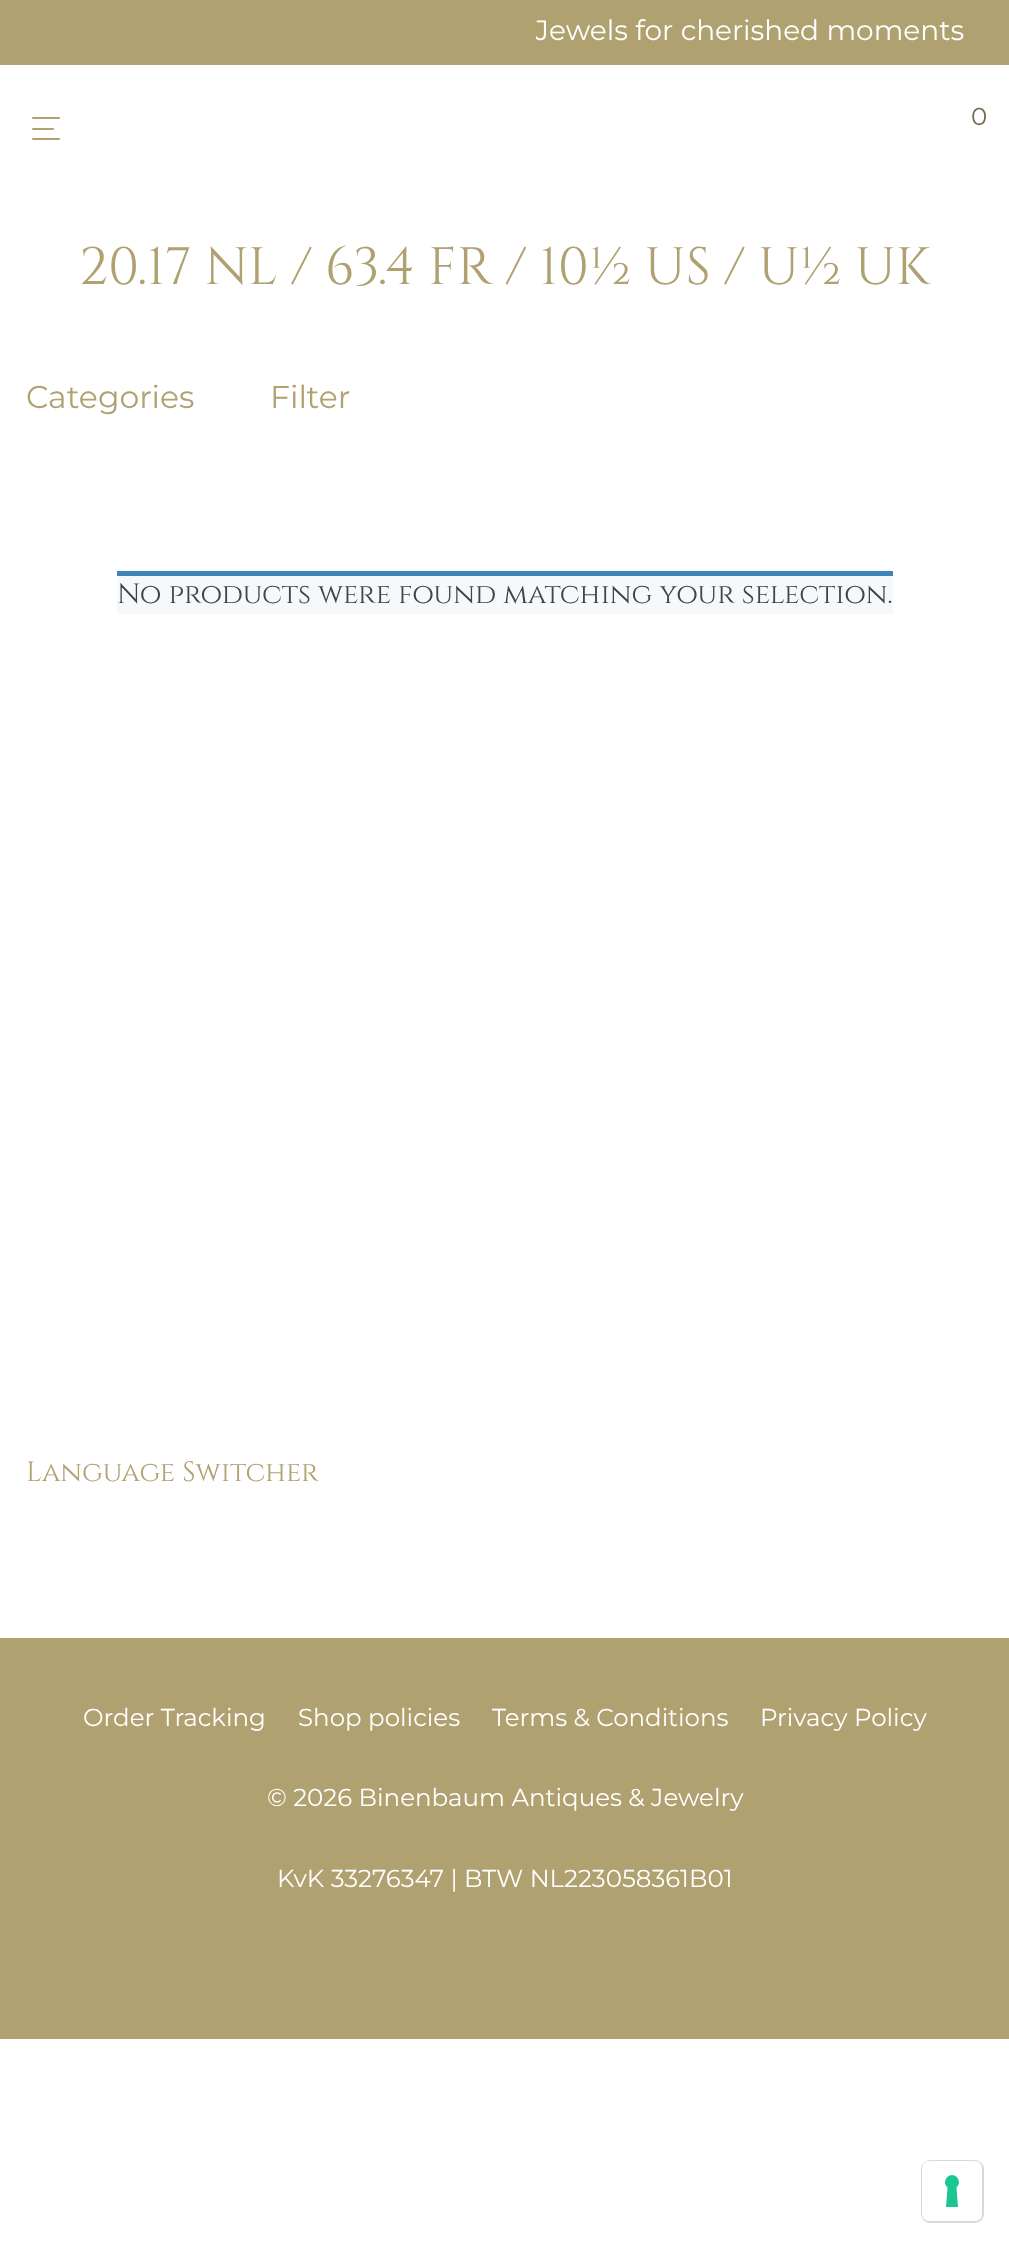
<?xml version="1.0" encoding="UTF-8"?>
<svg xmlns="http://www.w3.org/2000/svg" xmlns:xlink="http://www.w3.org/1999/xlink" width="1009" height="2248">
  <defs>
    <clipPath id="clip1"><rect x="536" width="448" height="61" /></clipPath>
  </defs>
  <rect width="100%" height="100%" fill="#ffffff" />
  <rect width="1009" height="65" fill="#b0a171" />
  <rect x="32" y="117" width="28" height="2" rx="1" fill="#b0a171" />
  <rect x="32" y="128" width="22" height="2" rx="1" fill="#b0a171" />
  <rect x="32" y="138" width="28" height="2" rx="1" fill="#b0a171" />
  <rect x="117" y="576" width="776" height="38" fill="#f6f9fb" />
  <rect x="117" y="571" width="776" height="5" fill="#3f84b9" />
  <rect y="1638" width="1009" height="401" fill="#b0a171" />
  <rect x="922" y="2161" width="61" height="61" rx="8" fill="none" stroke="#d9d9d9" stroke-width="2" />
  <rect x="922" y="2161" width="60" height="60" rx="7" fill="#ffffff" />
  <path d="M 952 2175 c 6.5 0.5 9.5 8.5 4.5 12.5 l 1.5 19.5 h -12 l 1.5 -19.5 c -5 -4 -2 -12 4.5 -12.5 z" fill="#1cc691" fill-rule="evenodd" />
  <g clip-path="url(#clip1)">
    <text x="535" y="40" style="font-family: Montserrat; font-size: 28px; fill: #ffffff">Jewels for cherished moments</text>
  </g>
  <text x="971" y="125" style="font-family: Montserrat; font-size: 24.5px; fill: #756b4b">0</text>
  <text x="79" y="284" style="font-family: Cinzel; font-size: 52.5px; fill: #b0a171">20.17 NL / 63.4 FR / 10½ US / U½ UK</text>
  <text x="26" y="408" style="font-family: Montserrat; font-size: 31.5px; fill: #b0a171">Categories</text>
  <text x="270" y="408" style="font-family: Montserrat; font-size: 31.5px; fill: #b0a171">Filter</text>
  <text x="117" y="603" style="font-family: Cinzel; font-size: 28px; fill: #3f444b">No products were found matching your selection.</text>
  <text x="26" y="1481" style="font-family: Cinzel; font-size: 28px; fill: #b0a171">Language Switcher</text>
  <text x="83" y="1726" style="font-family: Montserrat; font-size: 24.5px; fill: #ffffff">Order Tracking</text>
  <text x="298" y="1726" style="font-family: Montserrat; font-size: 24.5px; fill: #ffffff">Shop policies</text>
  <text x="492" y="1726" style="font-family: Montserrat; font-size: 24.5px; fill: #ffffff">Terms &amp; Conditions</text>
  <text x="760" y="1726" style="font-family: Montserrat; font-size: 24.5px; fill: #ffffff">Privacy Policy</text>
  <text x="267" y="1806" style="font-family: Montserrat; font-size: 24.5px; fill: #ffffff">© 2026 Binenbaum Antiques &amp; Jewelry</text>
  <text x="277" y="1887" style="font-family: Montserrat; font-size: 24.5px; fill: #ffffff">KvK 33276347 | BTW NL223058361B01</text>
</svg>
